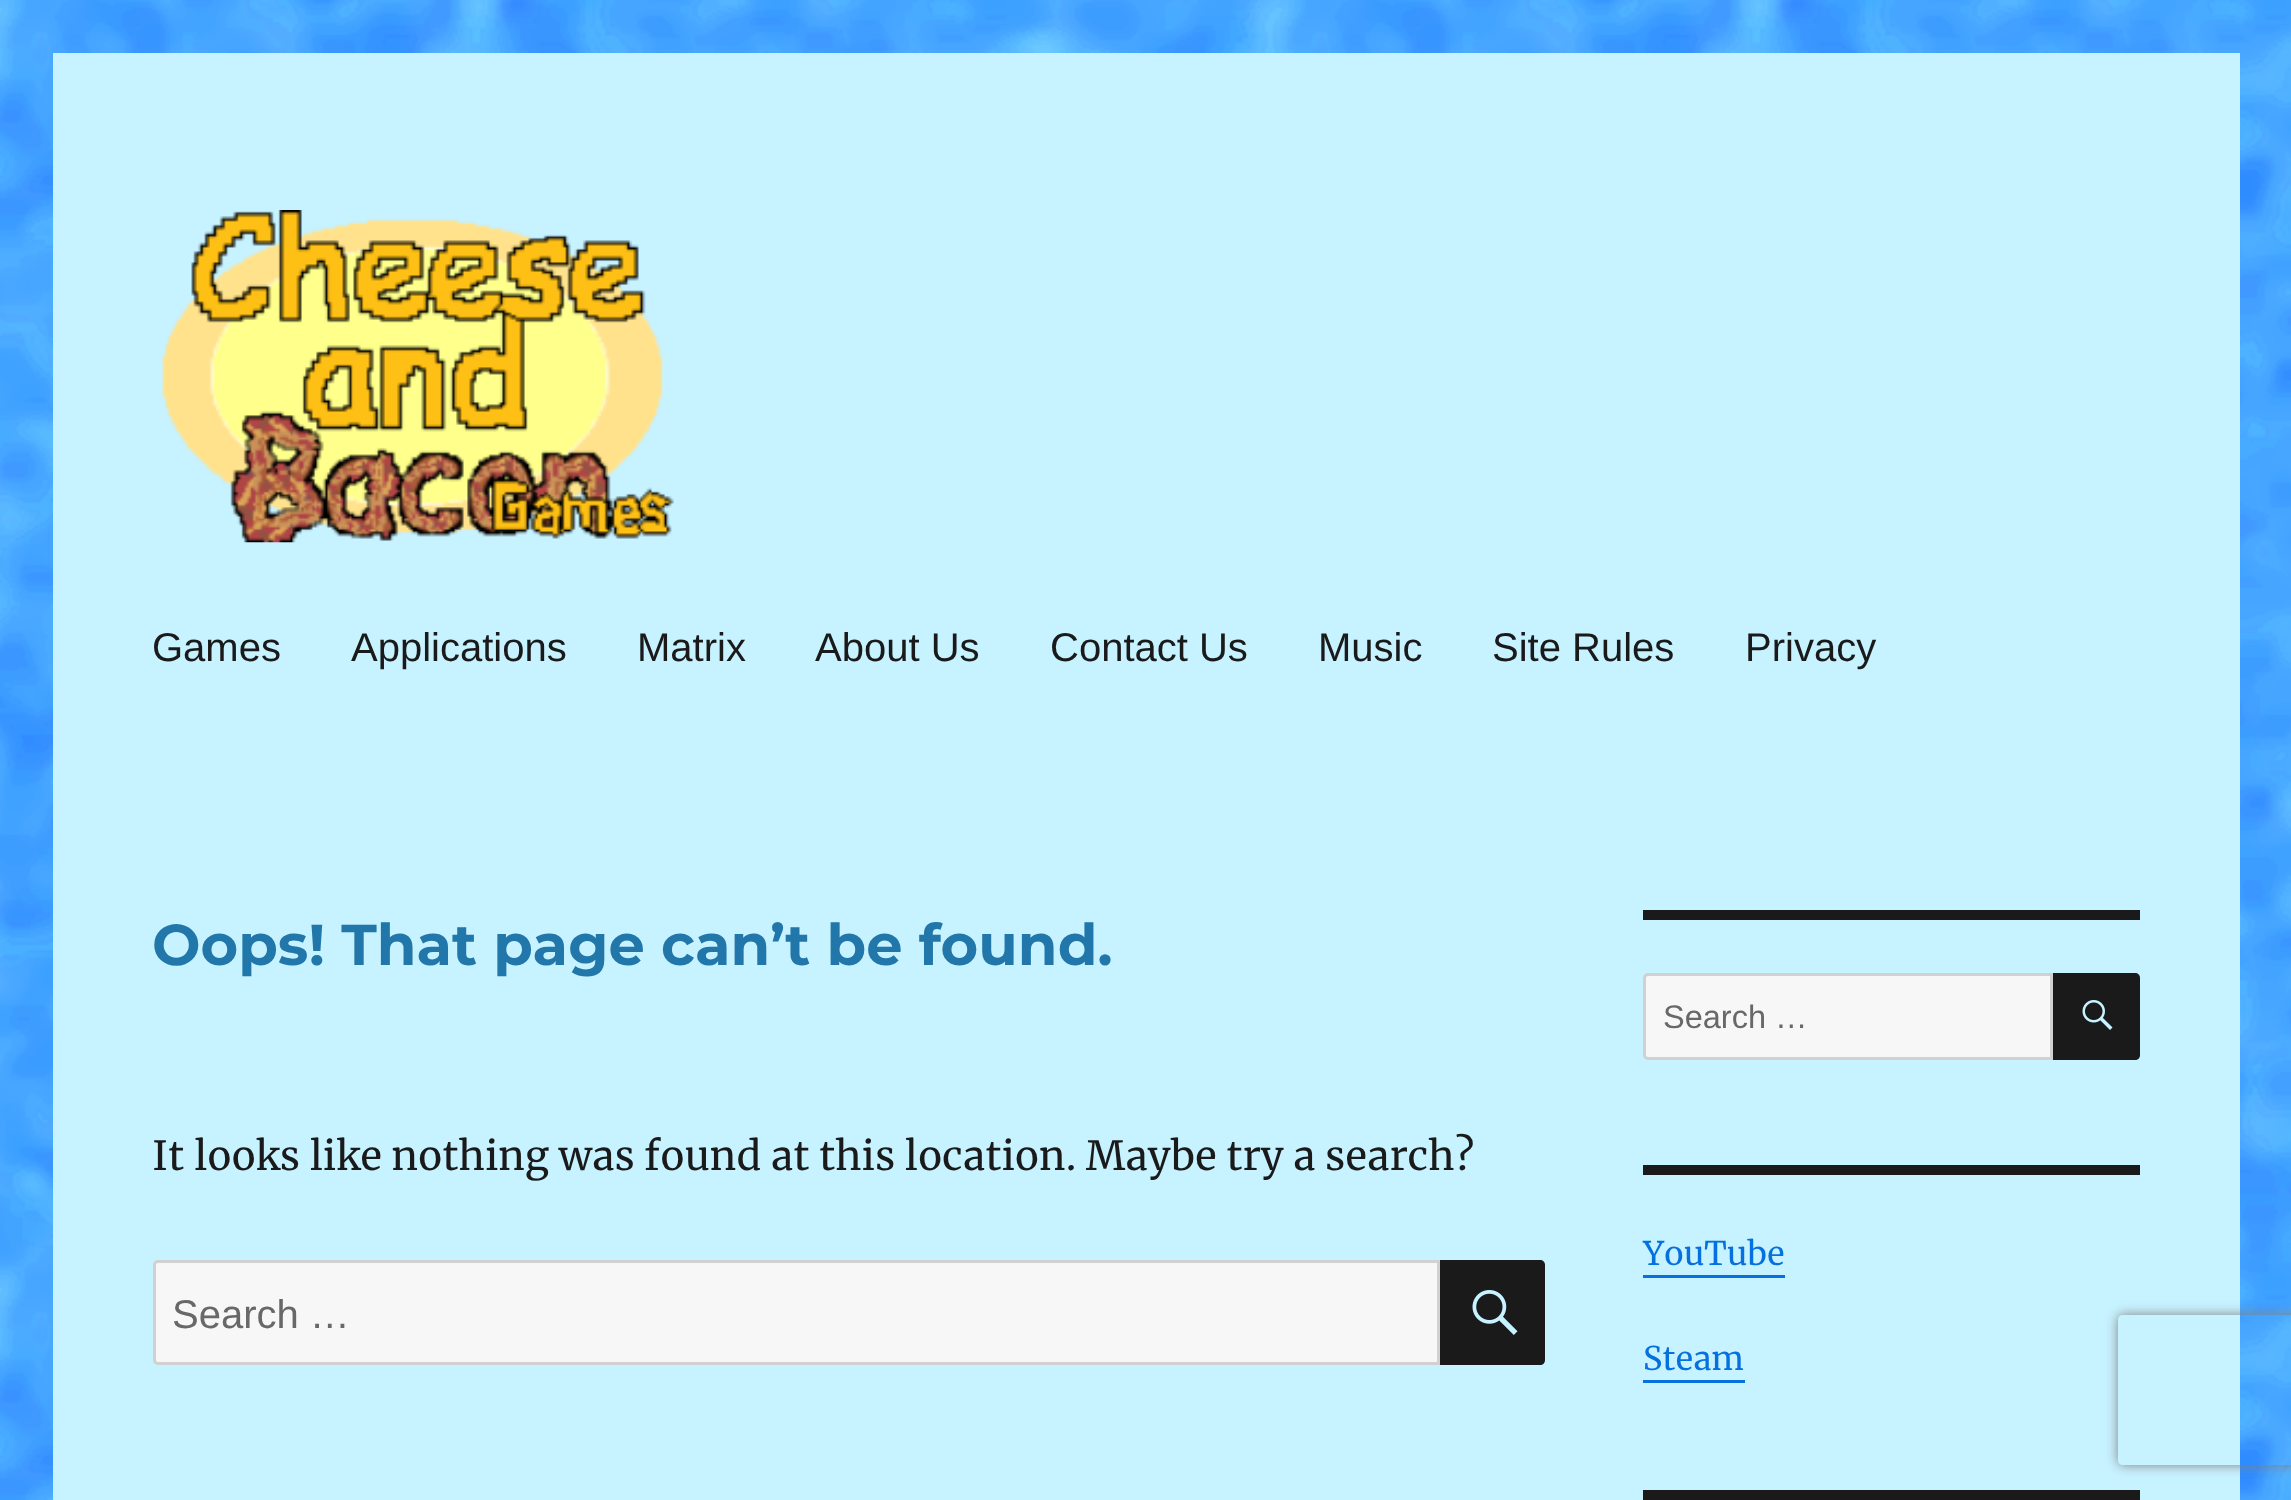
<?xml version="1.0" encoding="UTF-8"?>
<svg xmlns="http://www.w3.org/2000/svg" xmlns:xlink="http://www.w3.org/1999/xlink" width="2291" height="1500">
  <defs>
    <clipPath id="clip1"><path d="M 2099 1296 h 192 v 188 h -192 z m 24 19 h 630 c 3 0 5 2 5 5 v 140 c 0 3 -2 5 -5 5 h -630 c -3 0 -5 -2 -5 -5 v -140 c 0 -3 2 -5 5 -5 z" clip-rule="evenodd" /></clipPath>
  </defs>
  <rect width="100%" height="100%" fill="#ffffff" />
  <image x="0" y="0" width="2291" height="1500" xlink:href="image1.png" />
  <rect x="53" y="53" width="2187" height="1447" fill="#c7f2ff" />
  <image x="161" y="210" width="513" height="333" xlink:href="image2.png" />
  <path d="M 158 1261.5 h 1280.5 v 102 h -1280.5 c -2 0 -3.5 -1.5 -3.5 -3.5 v -95 c 0 -2 1.5 -3.5 3.5 -3.5 z" fill="#f7f7f7" stroke="#d1d1d1" stroke-width="3" />
  <path d="M 1440 1260 h 100 c 3 0 5 2 5 5 v 95 c 0 3 -2 5 -5 5 h -100 z" fill="#1a1a1a" />
  <image x="1472" y="1290" width="46" height="45" xlink:href="image3.png" />
  <rect x="1643" y="910" width="497" height="10" fill="#1a1a1a" />
  <path d="M 1648 974.5 h 403.5 v 84 h -403.5 c -2 0 -3.5 -1.5 -3.5 -3.5 v -77 c 0 -2 1.5 -3.5 3.5 -3.5 z" fill="#f7f7f7" stroke="#d1d1d1" stroke-width="3" />
  <path d="M 2053 973 h 82 c 3 0 5 2 5 5 v 77 c 0 3 -2 5 -5 5 h -82 z" fill="#1a1a1a" />
  <image x="2082" y="1000" width="31" height="30" xlink:href="image4.png" />
  <rect x="1643" y="1165" width="497" height="10" fill="#1a1a1a" />
  <rect x="1643" y="1275" width="142" height="3" fill="#0571df" />
  <rect x="1643" y="1380" width="102" height="3" fill="#0571df" />
  <rect x="1643" y="1490" width="497" height="10" fill="#1a1a1a" />
  <g clip-path="url(#clip1)">
    <rect x="2118" y="1315" width="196" height="150" rx="5" fill="#808080" filter="blur(6px)" />
  </g>
  <text x="152" y="661" style="font-family: Liberation Sans; font-size: 40px; fill: #1a1a1a">Games</text>
  <text x="351" y="661" style="font-family: Liberation Sans; font-size: 40px; fill: #1a1a1a">Applications</text>
  <text x="637" y="661" style="font-family: Liberation Sans; font-size: 40px; fill: #1a1a1a">Matrix</text>
  <text x="815" y="661" style="font-family: Liberation Sans; font-size: 40px; fill: #1a1a1a">About Us</text>
  <text x="1050" y="661" style="font-family: Liberation Sans; font-size: 40px; fill: #1a1a1a">Contact Us</text>
  <text x="1318" y="661" style="font-family: Liberation Sans; font-size: 40px; fill: #1a1a1a">Music</text>
  <text x="1492" y="661" style="font-family: Liberation Sans; font-size: 40px; fill: #1a1a1a">Site Rules</text>
  <text x="1745" y="661" style="font-family: Liberation Sans; font-size: 40px; fill: #1a1a1a">Privacy</text>
  <text x="152" y="965" style="font-family: Montserrat; font-size: 57.5px; font-weight: 100; fill: #2277aa">Oops! That page can’t be found.</text>
  <text x="152" y="1170" style="font-family: Merriweather; font-size: 40px; fill: #1a1a1a">It looks like nothing was found at this location. Maybe try a search?</text>
  <text x="172" y="1328" style="font-family: Liberation Sans; font-size: 40px; fill: #686868">Search …</text>
  <text x="1663" y="1028" style="font-family: Liberation Sans; font-size: 32.5px; fill: #686868">Search …</text>
  <text x="1643" y="1265" style="font-family: Merriweather; font-size: 32.5px; fill: #0571df">YouTube</text>
  <text x="1643" y="1370" style="font-family: Merriweather; font-size: 32.5px; fill: #0571df">Steam</text>
</svg>
